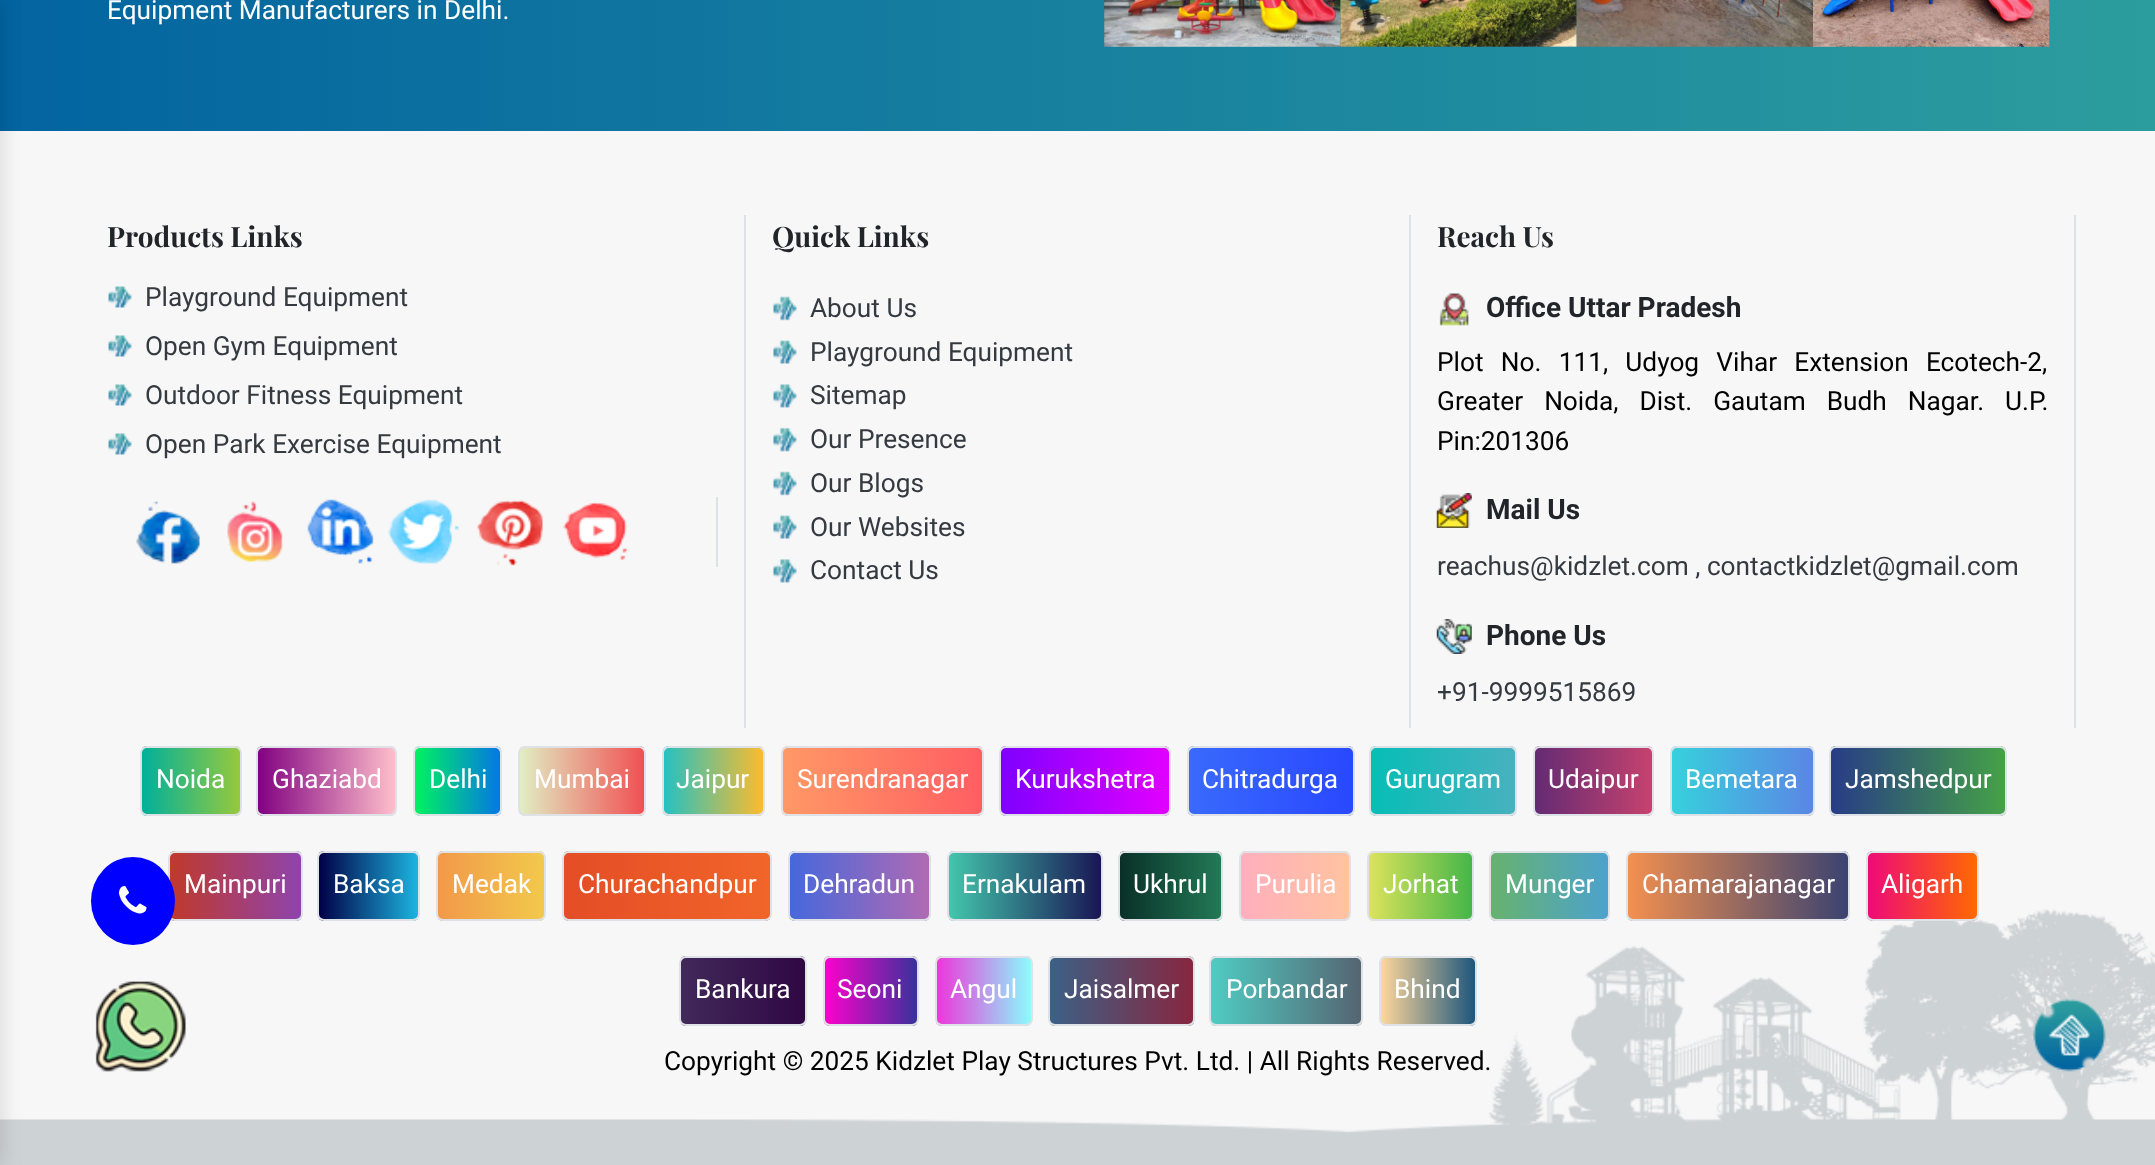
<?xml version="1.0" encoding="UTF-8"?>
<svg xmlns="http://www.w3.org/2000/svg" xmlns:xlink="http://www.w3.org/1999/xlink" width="2155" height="1165">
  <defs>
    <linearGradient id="g1" gradientUnits="userSpaceOnUse" x1="0" y1="-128" x2="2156" y2="-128"><stop offset="0" stop-color="#0364a0" /><stop offset="1" stop-color="#2c9d9e" /></linearGradient>
    <clipPath id="clip1"><rect x="140" y="746" width="102" height="70" rx="7" /></clipPath>
    <linearGradient id="g2" gradientUnits="userSpaceOnUse" x1="142" y1="781" x2="240" y2="781"><stop offset="0" stop-color="#00b09b" /><stop offset="1" stop-color="#96c93d" /></linearGradient>
    <clipPath id="clip2"><rect x="256" y="746" width="141" height="70" rx="7" /></clipPath>
    <linearGradient id="g3" gradientUnits="userSpaceOnUse" x1="257" y1="781" x2="396" y2="781"><stop offset="0" stop-color="#800080" /><stop offset="1" stop-color="#ffc0cb" /></linearGradient>
    <clipPath id="clip3"><rect x="413" y="746" width="89" height="70" rx="7" /></clipPath>
    <linearGradient id="g4" gradientUnits="userSpaceOnUse" x1="415" y1="781" x2="501" y2="781"><stop offset="0" stop-color="#00f260" /><stop offset="1" stop-color="#0575e6" /></linearGradient>
    <clipPath id="clip4"><rect x="518" y="746" width="128" height="70" rx="7" /></clipPath>
    <linearGradient id="g5" gradientUnits="userSpaceOnUse" x1="520" y1="781" x2="644" y2="781"><stop offset="0" stop-color="#e1eec3" /><stop offset="1" stop-color="#f05053" /></linearGradient>
    <clipPath id="clip5"><rect x="662" y="746" width="103" height="70" rx="7" /></clipPath>
    <linearGradient id="g6" gradientUnits="userSpaceOnUse" x1="663" y1="781" x2="763" y2="781"><stop offset="0" stop-color="#22c1c3" /><stop offset="1" stop-color="#fdbb2d" /></linearGradient>
    <clipPath id="clip6"><rect x="781" y="746" width="203" height="70" rx="7" /></clipPath>
    <linearGradient id="g7" gradientUnits="userSpaceOnUse" x1="782" y1="781" x2="982" y2="781"><stop offset="0" stop-color="#ff9966" /><stop offset="1" stop-color="#ff5e62" /></linearGradient>
    <clipPath id="clip7"><rect x="999" y="746" width="172" height="70" rx="7" /></clipPath>
    <linearGradient id="g8" gradientUnits="userSpaceOnUse" x1="1001" y1="781" x2="1169" y2="781"><stop offset="0" stop-color="#7f00ff" /><stop offset="1" stop-color="#e100ff" /></linearGradient>
    <clipPath id="clip8"><rect x="1187" y="746" width="168" height="70" rx="7" /></clipPath>
    <linearGradient id="g9" gradientUnits="userSpaceOnUse" x1="1188" y1="781" x2="1353" y2="781"><stop offset="0" stop-color="#396afc" /><stop offset="1" stop-color="#2948ff" /></linearGradient>
    <clipPath id="clip9"><rect x="1369" y="746" width="148" height="70" rx="7" /></clipPath>
    <linearGradient id="g10" gradientUnits="userSpaceOnUse" x1="1370" y1="781" x2="1516" y2="781"><stop offset="0" stop-color="#06beb6" /><stop offset="1" stop-color="#48b1bf" /></linearGradient>
    <clipPath id="clip10"><rect x="1533" y="746" width="121" height="70" rx="7" /></clipPath>
    <linearGradient id="g11" gradientUnits="userSpaceOnUse" x1="1535" y1="781" x2="1652" y2="781"><stop offset="0" stop-color="#642b73" /><stop offset="1" stop-color="#c6426e" /></linearGradient>
    <clipPath id="clip11"><rect x="1670" y="746" width="145" height="70" rx="7" /></clipPath>
    <linearGradient id="g12" gradientUnits="userSpaceOnUse" x1="1671" y1="781" x2="1813" y2="781"><stop offset="0" stop-color="#36d1dc" /><stop offset="1" stop-color="#5b86e5" /></linearGradient>
    <clipPath id="clip12"><rect x="1829" y="746" width="178" height="70" rx="7" /></clipPath>
    <linearGradient id="g13" gradientUnits="userSpaceOnUse" x1="1831" y1="781" x2="2006" y2="781"><stop offset="0" stop-color="#283c86" /><stop offset="1" stop-color="#45a247" /></linearGradient>
    <clipPath id="clip13"><rect x="168" y="851" width="135" height="70" rx="7" /></clipPath>
    <linearGradient id="g14" gradientUnits="userSpaceOnUse" x1="170" y1="886" x2="301" y2="886"><stop offset="0" stop-color="#c0392b" /><stop offset="1" stop-color="#8e44ad" /></linearGradient>
    <clipPath id="clip14"><rect x="317" y="851" width="103" height="70" rx="7" /></clipPath>
    <linearGradient id="g15" gradientUnits="userSpaceOnUse" x1="319" y1="886" x2="418" y2="886"><stop offset="0" stop-color="#000046" /><stop offset="1" stop-color="#1cb5e0" /></linearGradient>
    <clipPath id="clip15"><rect x="436" y="851" width="110" height="70" rx="7" /></clipPath>
    <linearGradient id="g16" gradientUnits="userSpaceOnUse" x1="438" y1="886" x2="544" y2="886"><stop offset="0" stop-color="#f2994a" /><stop offset="1" stop-color="#f2c94c" /></linearGradient>
    <clipPath id="clip16"><rect x="562" y="851" width="210" height="70" rx="7" /></clipPath>
    <linearGradient id="g17" gradientUnits="userSpaceOnUse" x1="564" y1="886" x2="770" y2="886"><stop offset="0" stop-color="#e44d26" /><stop offset="1" stop-color="#f16529" /></linearGradient>
    <clipPath id="clip17"><rect x="788" y="851" width="143" height="70" rx="7" /></clipPath>
    <linearGradient id="g18" gradientUnits="userSpaceOnUse" x1="789" y1="886" x2="929" y2="886"><stop offset="0" stop-color="#4568dc" /><stop offset="1" stop-color="#b06ab3" /></linearGradient>
    <clipPath id="clip18"><rect x="947" y="851" width="156" height="70" rx="7" /></clipPath>
    <linearGradient id="g19" gradientUnits="userSpaceOnUse" x1="949" y1="886" x2="1101" y2="886"><stop offset="0" stop-color="#43c6ac" /><stop offset="1" stop-color="#191654" /></linearGradient>
    <clipPath id="clip19"><rect x="1118" y="851" width="105" height="70" rx="7" /></clipPath>
    <linearGradient id="g20" gradientUnits="userSpaceOnUse" x1="1120" y1="886" x2="1222" y2="886"><stop offset="0" stop-color="#093028" /><stop offset="1" stop-color="#237a57" /></linearGradient>
    <clipPath id="clip20"><rect x="1239" y="851" width="112" height="70" rx="7" /></clipPath>
    <linearGradient id="g21" gradientUnits="userSpaceOnUse" x1="1241" y1="886" x2="1349" y2="886"><stop offset="0" stop-color="#ffafbd" /><stop offset="1" stop-color="#ffc3a0" /></linearGradient>
    <clipPath id="clip21"><rect x="1367" y="851" width="107" height="70" rx="7" /></clipPath>
    <linearGradient id="g22" gradientUnits="userSpaceOnUse" x1="1369" y1="886" x2="1472" y2="886"><stop offset="0" stop-color="#dce35b" /><stop offset="1" stop-color="#45b649" /></linearGradient>
    <clipPath id="clip22"><rect x="1489" y="851" width="121" height="70" rx="7" /></clipPath>
    <linearGradient id="g23" gradientUnits="userSpaceOnUse" x1="1491" y1="886" x2="1608" y2="886"><stop offset="0" stop-color="#67b26f" /><stop offset="1" stop-color="#4ca2cd" /></linearGradient>
    <clipPath id="clip23"><rect x="1626" y="851" width="224" height="70" rx="7" /></clipPath>
    <linearGradient id="g24" gradientUnits="userSpaceOnUse" x1="1628" y1="886" x2="1848" y2="886"><stop offset="0" stop-color="#f3904f" /><stop offset="1" stop-color="#3b4371" /></linearGradient>
    <clipPath id="clip24"><rect x="1866" y="851" width="113" height="70" rx="7" /></clipPath>
    <linearGradient id="g25" gradientUnits="userSpaceOnUse" x1="1867" y1="886" x2="1978" y2="886"><stop offset="0" stop-color="#ee0979" /><stop offset="1" stop-color="#ff6a00" /></linearGradient>
    <clipPath id="clip25"><rect x="679" y="956" width="128" height="70" rx="7" /></clipPath>
    <linearGradient id="g26" gradientUnits="userSpaceOnUse" x1="681" y1="991" x2="805" y2="991"><stop offset="0" stop-color="#41295a" /><stop offset="1" stop-color="#2f0743" /></linearGradient>
    <clipPath id="clip26"><rect x="823" y="956" width="96" height="70" rx="7" /></clipPath>
    <linearGradient id="g27" gradientUnits="userSpaceOnUse" x1="824" y1="991" x2="917" y2="991"><stop offset="0" stop-color="#fe01cc" /><stop offset="1" stop-color="#39329b" /></linearGradient>
    <clipPath id="clip27"><rect x="935" y="956" width="98" height="70" rx="7" /></clipPath>
    <linearGradient id="g28" gradientUnits="userSpaceOnUse" x1="936" y1="991" x2="1031" y2="991"><stop offset="0" stop-color="#ee34da" /><stop offset="1" stop-color="#8afcfc" /></linearGradient>
    <clipPath id="clip28"><rect x="1048" y="956" width="147" height="70" rx="7" /></clipPath>
    <linearGradient id="g29" gradientUnits="userSpaceOnUse" x1="1050" y1="991" x2="1194" y2="991"><stop offset="0" stop-color="#3b6186" /><stop offset="1" stop-color="#88263f" /></linearGradient>
    <clipPath id="clip29"><rect x="1209" y="956" width="154" height="70" rx="7" /></clipPath>
    <linearGradient id="g30" gradientUnits="userSpaceOnUse" x1="1211" y1="991" x2="1362" y2="991"><stop offset="0" stop-color="#4fccc3" /><stop offset="1" stop-color="#556471" /></linearGradient>
    <clipPath id="clip30"><rect x="1379" y="956" width="98" height="70" rx="7" /></clipPath>
    <linearGradient id="g31" gradientUnits="userSpaceOnUse" x1="1381" y1="991" x2="1475" y2="991"><stop offset="0" stop-color="#fdd79b" /><stop offset="1" stop-color="#1d567c" /></linearGradient>
  </defs>
  <rect width="100%" height="100%" fill="#ffffff" />
  <rect width="2155" height="131" fill="url(#g1)" />
  <rect y="131" width="2155" height="779" fill="#f7f7f7" />
  <image x="0" y="909" width="2155" height="256" xlink:href="image5.png" />
  <rect x="-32" width="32" height="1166" fill="#000000" fill-opacity="0.14" filter="blur(10.5px)" />
  <image x="1104" y="0" width="237" height="47" xlink:href="image1.png" />
  <image x="1340" y="0" width="237" height="47" xlink:href="image2.png" />
  <image x="1576" y="0" width="237" height="47" xlink:href="image3.png" />
  <image x="1813" y="0" width="237" height="47" xlink:href="image4.png" />
  <rect x="744" y="215" width="2" height="513" fill="#dee2e6" />
  <image x="108" y="286" width="24" height="22" xlink:href="image6.png" />
  <image x="108" y="335" width="24" height="22" xlink:href="image6.png" />
  <image x="108" y="384" width="24" height="22" xlink:href="image6.png" />
  <image x="108" y="433" width="24" height="22" xlink:href="image6.png" />
  <rect x="716" y="497" width="2" height="70" fill="#dee2e6" />
  <image x="136" y="501" width="64" height="63" xlink:href="image7.png" />
  <image x="227" y="501" width="56" height="61" xlink:href="image8.png" />
  <image x="307" y="499" width="67" height="65" xlink:href="image9.png" />
  <image x="388" y="499" width="71" height="65" xlink:href="image10.png" />
  <image x="477" y="499" width="66" height="67" xlink:href="image11.png" />
  <image x="563" y="503" width="64" height="57" xlink:href="image12.png" />
  <rect x="1409" y="215" width="2" height="513" fill="#dee2e6" />
  <image x="773" y="296" width="24" height="25" xlink:href="image13.png" />
  <image x="773" y="340" width="24" height="24" xlink:href="image14.png" />
  <image x="773" y="384" width="24" height="24" xlink:href="image15.png" />
  <image x="773" y="427" width="24" height="25" xlink:href="image16.png" />
  <image x="773" y="471" width="24" height="25" xlink:href="image13.png" />
  <image x="773" y="515" width="24" height="24" xlink:href="image14.png" />
  <image x="773" y="559" width="24" height="24" xlink:href="image15.png" />
  <rect x="2074" y="215" width="2" height="513" fill="#dee2e6" />
  <image x="1439" y="293" width="30" height="33" xlink:href="image17.png" />
  <image x="1436" y="493" width="36" height="35" xlink:href="image18.png" />
  <image x="1436" y="619" width="36" height="35" xlink:href="image19.png" />
  <g clip-path="url(#clip1)">
    <rect x="142" y="746" width="98" height="70" fill="url(#g2)" />
  </g>
  <rect x="141" y="747" width="100" height="68" rx="6" fill="none" stroke="#dee2e6" stroke-width="2" />
  <g clip-path="url(#clip2)">
    <rect x="257" y="746" width="139" height="70" fill="url(#g3)" />
  </g>
  <rect x="257" y="747" width="139" height="68" rx="6" fill="none" stroke="#dee2e6" stroke-width="2" />
  <g clip-path="url(#clip3)">
    <rect x="415" y="746" width="86" height="70" fill="url(#g4)" />
  </g>
  <rect x="414" y="747" width="87" height="68" rx="6" fill="none" stroke="#dee2e6" stroke-width="2" />
  <g clip-path="url(#clip4)">
    <rect x="520" y="746" width="124" height="70" fill="url(#g5)" />
  </g>
  <rect x="519" y="747" width="126" height="68" rx="6" fill="none" stroke="#dee2e6" stroke-width="2" />
  <g clip-path="url(#clip5)">
    <rect x="663" y="746" width="100" height="70" fill="url(#g6)" />
  </g>
  <rect x="663" y="747" width="101" height="68" rx="6" fill="none" stroke="#dee2e6" stroke-width="2" />
  <g clip-path="url(#clip6)">
    <rect x="782" y="746" width="200" height="70" fill="url(#g7)" />
  </g>
  <rect x="782" y="747" width="201" height="68" rx="6" fill="none" stroke="#dee2e6" stroke-width="2" />
  <g clip-path="url(#clip7)">
    <rect x="1001" y="746" width="168" height="70" fill="url(#g8)" />
  </g>
  <rect x="1000" y="747" width="170" height="68" rx="6" fill="none" stroke="#dee2e6" stroke-width="2" />
  <g clip-path="url(#clip8)">
    <rect x="1188" y="746" width="165" height="70" fill="url(#g9)" />
  </g>
  <rect x="1188" y="747" width="166" height="68" rx="6" fill="none" stroke="#dee2e6" stroke-width="2" />
  <g clip-path="url(#clip9)">
    <rect x="1370" y="746" width="146" height="70" fill="url(#g10)" />
  </g>
  <rect x="1370" y="747" width="146" height="68" rx="6" fill="none" stroke="#dee2e6" stroke-width="2" />
  <g clip-path="url(#clip10)">
    <rect x="1535" y="746" width="117" height="70" fill="url(#g11)" />
  </g>
  <rect x="1534" y="747" width="119" height="68" rx="6" fill="none" stroke="#dee2e6" stroke-width="2" />
  <g clip-path="url(#clip11)">
    <rect x="1671" y="746" width="142" height="70" fill="url(#g12)" />
  </g>
  <rect x="1671" y="747" width="143" height="68" rx="6" fill="none" stroke="#dee2e6" stroke-width="2" />
  <g clip-path="url(#clip12)">
    <rect x="1831" y="746" width="175" height="70" fill="url(#g13)" />
  </g>
  <rect x="1830" y="747" width="176" height="68" rx="6" fill="none" stroke="#dee2e6" stroke-width="2" />
  <g clip-path="url(#clip13)">
    <rect x="170" y="851" width="131" height="70" fill="url(#g14)" />
  </g>
  <rect x="169" y="852" width="133" height="68" rx="6" fill="none" stroke="#dee2e6" stroke-width="2" />
  <g clip-path="url(#clip14)">
    <rect x="319" y="851" width="99" height="70" fill="url(#g15)" />
  </g>
  <rect x="318" y="852" width="101" height="68" rx="6" fill="none" stroke="#dee2e6" stroke-width="2" />
  <g clip-path="url(#clip15)">
    <rect x="438" y="851" width="106" height="70" fill="url(#g16)" />
  </g>
  <rect x="437" y="852" width="108" height="68" rx="6" fill="none" stroke="#dee2e6" stroke-width="2" />
  <g clip-path="url(#clip16)">
    <rect x="564" y="851" width="206" height="70" fill="url(#g17)" />
  </g>
  <rect x="563" y="852" width="208" height="68" rx="6" fill="none" stroke="#dee2e6" stroke-width="2" />
  <g clip-path="url(#clip17)">
    <rect x="789" y="851" width="140" height="70" fill="url(#g18)" />
  </g>
  <rect x="789" y="852" width="141" height="68" rx="6" fill="none" stroke="#dee2e6" stroke-width="2" />
  <g clip-path="url(#clip18)">
    <rect x="949" y="851" width="152" height="70" fill="url(#g19)" />
  </g>
  <rect x="948" y="852" width="154" height="68" rx="6" fill="none" stroke="#dee2e6" stroke-width="2" />
  <g clip-path="url(#clip19)">
    <rect x="1120" y="851" width="102" height="70" fill="url(#g20)" />
  </g>
  <rect x="1119" y="852" width="103" height="68" rx="6" fill="none" stroke="#dee2e6" stroke-width="2" />
  <g clip-path="url(#clip20)">
    <rect x="1241" y="851" width="108" height="70" fill="url(#g21)" />
  </g>
  <rect x="1240" y="852" width="110" height="68" rx="6" fill="none" stroke="#dee2e6" stroke-width="2" />
  <g clip-path="url(#clip21)">
    <rect x="1369" y="851" width="103" height="70" fill="url(#g22)" />
  </g>
  <rect x="1368" y="852" width="105" height="68" rx="6" fill="none" stroke="#dee2e6" stroke-width="2" />
  <g clip-path="url(#clip22)">
    <rect x="1491" y="851" width="117" height="70" fill="url(#g23)" />
  </g>
  <rect x="1490" y="852" width="119" height="68" rx="6" fill="none" stroke="#dee2e6" stroke-width="2" />
  <g clip-path="url(#clip23)">
    <rect x="1628" y="851" width="220" height="70" fill="url(#g24)" />
  </g>
  <rect x="1627" y="852" width="222" height="68" rx="6" fill="none" stroke="#dee2e6" stroke-width="2" />
  <g clip-path="url(#clip24)">
    <rect x="1867" y="851" width="111" height="70" fill="url(#g25)" />
  </g>
  <rect x="1867" y="852" width="111" height="68" rx="6" fill="none" stroke="#dee2e6" stroke-width="2" />
  <g clip-path="url(#clip25)">
    <rect x="681" y="956" width="124" height="70" fill="url(#g26)" />
  </g>
  <rect x="680" y="957" width="126" height="68" rx="6" fill="none" stroke="#dee2e6" stroke-width="2" />
  <g clip-path="url(#clip26)">
    <rect x="824" y="956" width="93" height="70" fill="url(#g27)" />
  </g>
  <rect x="824" y="957" width="94" height="68" rx="6" fill="none" stroke="#dee2e6" stroke-width="2" />
  <g clip-path="url(#clip27)">
    <rect x="936" y="956" width="95" height="70" fill="url(#g28)" />
  </g>
  <rect x="936" y="957" width="96" height="68" rx="6" fill="none" stroke="#dee2e6" stroke-width="2" />
  <g clip-path="url(#clip28)">
    <rect x="1050" y="956" width="144" height="70" fill="url(#g29)" />
  </g>
  <rect x="1049" y="957" width="145" height="68" rx="6" fill="none" stroke="#dee2e6" stroke-width="2" />
  <g clip-path="url(#clip29)">
    <rect x="1211" y="956" width="151" height="70" fill="url(#g30)" />
  </g>
  <rect x="1210" y="957" width="152" height="68" rx="6" fill="none" stroke="#dee2e6" stroke-width="2" />
  <g clip-path="url(#clip30)">
    <rect x="1381" y="956" width="94" height="70" fill="url(#g31)" />
  </g>
  <rect x="1380" y="957" width="96" height="68" rx="6" fill="none" stroke="#dee2e6" stroke-width="2" />
  <ellipse cx="133" cy="901" rx="42" ry="44" fill="#0000ff" />
  <image x="119" y="886" width="28" height="28" xlink:href="image20.png" />
  <image x="95" y="981" width="91" height="91" xlink:href="image21.png" />
  <image x="2033" y="998" width="73" height="74" xlink:href="image22.png" />
  <text x="107" y="19" style="font-family: Roboto; font-size: 26.25px; fill: #ffffff">Equipment Manufacturers in Delhi.</text>
  <text x="107" y="247" style="font-family: Playfair Display; font-size: 28px; font-weight: bold; fill: #212529">Products Links</text>
  <text x="145" y="306" style="font-family: Roboto; font-size: 26.25px; fill: #343a40">Playground Equipment</text>
  <text x="145" y="355" style="font-family: Roboto; font-size: 26.25px; fill: #343a40">Open Gym Equipment</text>
  <text x="145" y="404" style="font-family: Roboto; font-size: 26.25px; fill: #343a40">Outdoor Fitness Equipment</text>
  <text x="145" y="453" style="font-family: Roboto; font-size: 26.25px; fill: #343a40">Open Park Exercise Equipment</text>
  <text x="772" y="247" style="font-family: Playfair Display; font-size: 28px; font-weight: bold; fill: #212529">Quick Links</text>
  <text x="810" y="317" style="font-family: Roboto; font-size: 26.25px; fill: #343a40">About Us</text>
  <text x="810" y="361" style="font-family: Roboto; font-size: 26.25px; fill: #343a40">Playground Equipment</text>
  <text x="810" y="404" style="font-family: Roboto; font-size: 26.25px; fill: #343a40">Sitemap</text>
  <text x="810" y="448" style="font-family: Roboto; font-size: 26.25px; fill: #343a40">Our Presence</text>
  <text x="810" y="492" style="font-family: Roboto; font-size: 26.25px; fill: #343a40">Our Blogs</text>
  <text x="810" y="536" style="font-family: Roboto; font-size: 26.25px; fill: #343a40">Our Websites</text>
  <text x="810" y="579" style="font-family: Roboto; font-size: 26.25px; fill: #343a40">Contact Us</text>
  <text x="1437" y="247" style="font-family: Playfair Display; font-size: 28px; font-weight: bold; fill: #212529">Reach Us</text>
  <text x="1486" y="317" style="font-family: Roboto; font-size: 28px; font-weight: bold; fill: #212529">Office Uttar Pradesh</text>
  <text x="1437" y="371" word-spacing="10.75" style="font-family: Roboto; font-size: 26.25px; fill: #000000">Plot No. 111, Udyog Vihar Extension Ecotech-2,</text>
  <text x="1437" y="410" word-spacing="14.5" style="font-family: Roboto; font-size: 26.25px; fill: #000000">Greater Noida, Dist. Gautam Budh Nagar. U.P.</text>
  <text x="1437" y="450" style="font-family: Roboto; font-size: 26.25px; fill: #000000">Pin:201306</text>
  <text x="1486" y="519" style="font-family: Roboto; font-size: 28px; font-weight: bold; fill: #212529">Mail Us</text>
  <text x="1437" y="575" style="font-family: Roboto; font-size: 26.25px; fill: #343a40">reachus@kidzlet.com , contactkidzlet@gmail.com</text>
  <text x="1486" y="645" style="font-family: Roboto; font-size: 28px; font-weight: bold; fill: #212529">Phone Us</text>
  <text x="1437" y="701" style="font-family: Roboto; font-size: 26.25px; fill: #343a40">+91-9999515869</text>
  <text x="156" y="788" style="font-family: Roboto; font-size: 26.25px; fill: #ffffff">Noida</text>
  <text x="272" y="788" style="font-family: Roboto; font-size: 26.25px; fill: #ffffff">Ghaziabd</text>
  <text x="429" y="788" style="font-family: Roboto; font-size: 26.25px; fill: #ffffff">Delhi</text>
  <text x="534" y="788" style="font-family: Roboto; font-size: 26.25px; fill: #ffffff">Mumbai</text>
  <text x="676" y="788" style="font-family: Roboto; font-size: 26.25px; fill: #ffffff">Jaipur</text>
  <text x="797" y="788" style="font-family: Roboto; font-size: 26.25px; fill: #ffffff">Surendranagar</text>
  <text x="1015" y="788" style="font-family: Roboto; font-size: 26.25px; fill: #ffffff">Kurukshetra</text>
  <text x="1202" y="788" style="font-family: Roboto; font-size: 26.25px; fill: #ffffff">Chitradurga</text>
  <text x="1385" y="788" style="font-family: Roboto; font-size: 26.25px; fill: #ffffff">Gurugram</text>
  <text x="1548" y="788" style="font-family: Roboto; font-size: 26.25px; fill: #ffffff">Udaipur</text>
  <text x="1685" y="788" style="font-family: Roboto; font-size: 26.25px; fill: #ffffff">Bemetara</text>
  <text x="1845" y="788" style="font-family: Roboto; font-size: 26.25px; fill: #ffffff">Jamshedpur</text>
  <text x="184" y="893" style="font-family: Roboto; font-size: 26.25px; fill: #ffffff">Mainpuri</text>
  <text x="333" y="893" style="font-family: Roboto; font-size: 26.25px; fill: #ffffff">Baksa</text>
  <text x="452" y="893" style="font-family: Roboto; font-size: 26.25px; fill: #ffffff">Medak</text>
  <text x="578" y="893" style="font-family: Roboto; font-size: 26.25px; fill: #ffffff">Churachandpur</text>
  <text x="803" y="893" style="font-family: Roboto; font-size: 26.25px; fill: #ffffff">Dehradun</text>
  <text x="962" y="893" style="font-family: Roboto; font-size: 26.25px; fill: #ffffff">Ernakulam</text>
  <text x="1133" y="893" style="font-family: Roboto; font-size: 26.25px; fill: #ffffff">Ukhrul</text>
  <text x="1255" y="893" style="font-family: Roboto; font-size: 26.25px; fill: #ffffff">Purulia</text>
  <text x="1383" y="893" style="font-family: Roboto; font-size: 26.25px; fill: #ffffff">Jorhat</text>
  <text x="1505" y="893" style="font-family: Roboto; font-size: 26.25px; fill: #ffffff">Munger</text>
  <text x="1642" y="893" style="font-family: Roboto; font-size: 26.25px; fill: #ffffff">Chamarajanagar</text>
  <text x="1881" y="893" style="font-family: Roboto; font-size: 26.25px; fill: #ffffff">Aligarh</text>
  <text x="695" y="998" style="font-family: Roboto; font-size: 26.25px; fill: #ffffff">Bankura</text>
  <text x="837" y="998" style="font-family: Roboto; font-size: 26.25px; fill: #ffffff">Seoni</text>
  <text x="950" y="998" style="font-family: Roboto; font-size: 26.25px; fill: #ffffff">Angul</text>
  <text x="1064" y="998" style="font-family: Roboto; font-size: 26.25px; fill: #ffffff">Jaisalmer</text>
  <text x="1226" y="998" style="font-family: Roboto; font-size: 26.25px; fill: #ffffff">Porbandar</text>
  <text x="1394" y="998" style="font-family: Roboto; font-size: 26.25px; fill: #ffffff">Bhind</text>
  <text x="664" y="1070" style="font-family: Roboto; font-size: 26.25px; fill: #000000">Copyright © 2025 Kidzlet Play Structures Pvt. Ltd. | All Rights Reserved.</text>
</svg>
